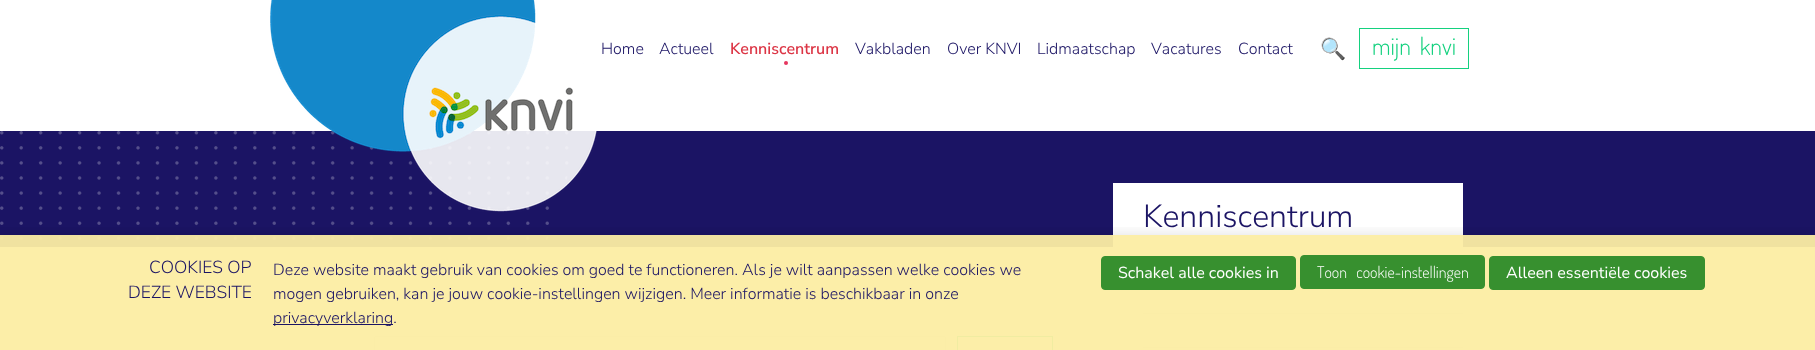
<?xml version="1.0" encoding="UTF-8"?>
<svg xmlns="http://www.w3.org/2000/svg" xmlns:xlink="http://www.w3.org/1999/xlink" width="1815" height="350">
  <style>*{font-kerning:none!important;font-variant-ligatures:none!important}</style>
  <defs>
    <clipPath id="clip1"><path d="M 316 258 h 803 v 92 h -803 z m 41 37 h 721 c 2 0 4 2 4 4 v 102 c 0 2 -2 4 -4 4 h -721 c -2 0 -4 -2 -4 -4 v -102 c 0 -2 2 -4 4 -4 z" clip-rule="evenodd" /></clipPath>
    <clipPath id="clip2"><rect x="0" y="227" width="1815" height="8" /></clipPath>
  </defs>
  <rect width="100%" height="100%" fill="#ffffff" />
  <rect y="131" width="1815" height="116" fill="#1b1464" />
  <image x="0" y="131" width="569" height="110" xlink:href="image3.png" />
  <image x="270" y="0" width="327" height="212" xlink:href="image1.png" />
  <circle cx="786" cy="63" r="2" fill="#e6365f" />
  <rect x="1359.5" y="28.5" width="109" height="40" fill="none" stroke="#14d17f" />
  <image x="1617" y="247" width="198" height="103" xlink:href="image2.png" />
  <rect x="1113" y="183" width="350" height="64" fill="#ffffff" />
  <rect x="1296" y="278" width="4" height="1" fill="#e6e6e6" />
  <rect x="1143" y="313" width="320" height="1" fill="#e6e6e6" />
  <rect x="1143" y="347" width="320" height="1" fill="#e6e6e6" />
  <g clip-path="url(#clip1)">
    <rect x="353" y="295" width="729" height="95" rx="4" fill="#000000" fill-opacity="0.13" filter="blur(12px)" />
  </g>
  <rect x="353.5" y="295.5" width="728" height="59" rx="3.5" fill="none" stroke="#f4f4f4" />
  <rect x="374.5" y="336.5" width="571" height="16" rx="1.5" fill="none" stroke="#e7e7e7" />
  <rect x="957.5" y="336.5" width="95" height="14" fill="none" stroke="#14d17f" />
  <g clip-path="url(#clip2)">
    <rect y="240" width="1815" height="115" fill="#000000" fill-opacity="0.2" filter="blur(10px)" />
  </g>
  <rect y="235" width="1815" height="115" fill="#fceda3" fill-opacity="0.95" />
  <rect x="273" y="324" width="120" height="1" fill="#1b1464" />
  <rect x="1101.5" y="256.5" width="194" height="33" rx="3.5" fill="#37902f" stroke="#37902f" />
  <rect x="1300.5" y="255.5" width="184" height="33" rx="3.5" fill="#37902f" stroke="#37902f" />
  <rect x="1489.5" y="256.5" width="215" height="33" rx="3.5" fill="#37902f" stroke="#37902f" />
  <text x="601" y="54" style="font-family: Nunito Sans; font-size: 16px; font-weight: 300; fill: #1b1464">Home</text>
  <text x="659" y="54" style="font-family: Nunito Sans; font-size: 16px; font-weight: 300; fill: #1b1464">Actueel</text>
  <text x="730" y="54" style="font-family: Nunito Sans; font-size: 16px; font-weight: 600; fill: #dc3545">Kenniscentrum</text>
  <text x="855" y="54" style="font-family: Nunito Sans; font-size: 16px; font-weight: 300; fill: #1b1464">Vakbladen</text>
  <text x="947" y="54" style="font-family: Nunito Sans; font-size: 16px; font-weight: 300; fill: #1b1464">Over KNVI</text>
  <text x="1037" y="54" style="font-family: Nunito Sans; font-size: 16px; font-weight: 300; fill: #1b1464">Lidmaatschap</text>
  <text x="1151" y="54" style="font-family: Nunito Sans; font-size: 16px; font-weight: 300; fill: #1b1464">Vacatures</text>
  <text x="1238" y="54" style="font-family: Nunito Sans; font-size: 16px; font-weight: 300; fill: #1b1464">Contact</text>
  <text x="1320" y="56" style="font-family: Noto Color Emoji; font-size: 21px; fill: #dc3545">🔍</text>
  <text x="1372" y="55" word-spacing="4" style="font-family: Dosis; font-size: 24px; font-weight: 300; fill: #14d17f">mijn knvi</text>
  <text x="1143" y="227" style="font-family: Nunito Sans; font-size: 32px; font-weight: 300; fill: #1b1464">Kenniscentrum</text>
  <text x="149" y="273" style="font-family: Nunito Sans; font-size: 17.5px; font-weight: 300; fill: #1b1464">COOKIES OP</text>
  <text x="128" y="298" style="font-family: Nunito Sans; font-size: 17.5px; font-weight: 300; fill: #1b1464">DEZE WEBSITE</text>
  <text x="273" y="275" style="font-family: Nunito Sans; font-size: 16px; font-weight: 300; fill: #1b1464">Deze website maakt gebruik van cookies om goed te functioneren. Als je wilt aanpassen welke cookies we</text>
  <text x="273" y="299" style="font-family: Nunito Sans; font-size: 16px; font-weight: 300; fill: #1b1464">mogen gebruiken, kan je jouw cookie-instellingen wijzigen. Meer informatie is beschikbaar in onze</text>
  <text x="273" y="323" style="font-family: Nunito Sans; font-size: 16px; font-weight: 300; fill: #1b1464">privacyverklaring.</text>
  <text x="1118" y="278" style="font-family: Nunito Sans; font-size: 16px; fill: #ffffff">Schakel alle cookies in</text>
  <text x="1317" y="278" word-spacing="6" style="font-family: Dosis; font-size: 16px; font-weight: 300; fill: #ffffff">Toon cookie-instellingen</text>
  <text x="1506" y="278" style="font-family: Nunito Sans; font-size: 16px; fill: #ffffff">Alleen essentiële cookies</text>
</svg>
